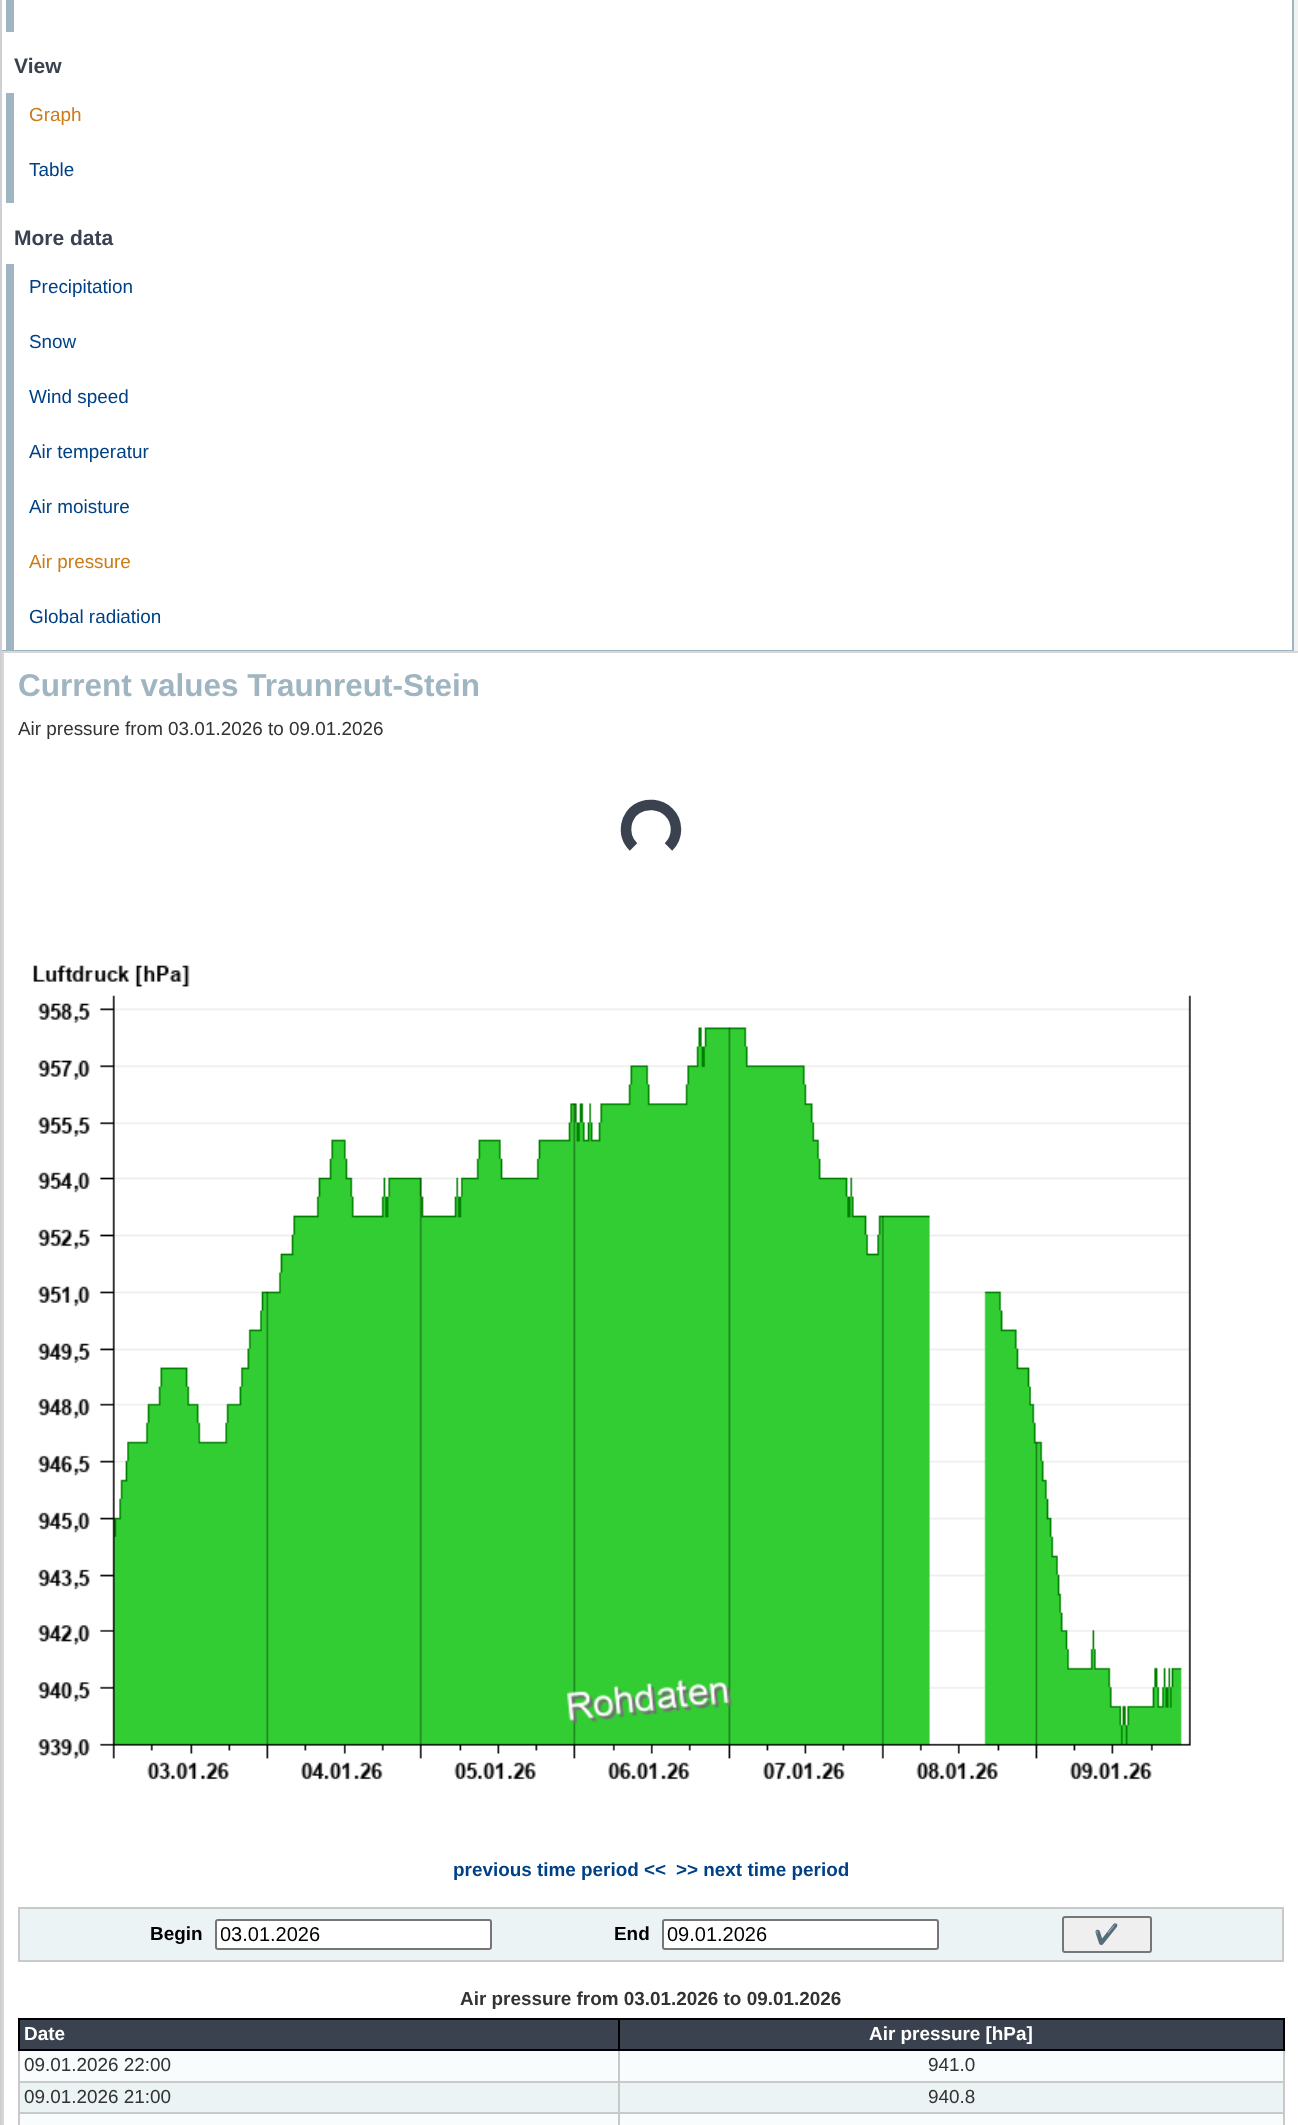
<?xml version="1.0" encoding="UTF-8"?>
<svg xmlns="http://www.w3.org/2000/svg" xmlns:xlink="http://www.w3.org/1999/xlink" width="1298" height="2125">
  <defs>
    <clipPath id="clip1"><rect x="221" y="1923" width="265" height="23" /></clipPath>
  </defs>
  <rect width="100%" height="100%" fill="#cecfd4" />
  <rect x="1294" width="4" height="651" fill="#f2f2f2" />
  <rect x="2" width="1290" height="650" fill="#ffffff" />
  <rect x="1292" width="2" height="651" fill="#9fb5c1" />
  <rect x="2" y="650" width="1291" height="1" fill="#9fb5c1" />
  <rect x="6" width="8" height="32" fill="#9fb5c1" />
  <rect x="6" y="93" width="8" height="110" fill="#9fb5c1" />
  <rect x="6" y="264" width="8" height="386" fill="#9fb5c1" />
  <rect x="3" y="652" width="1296" height="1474" fill="#ffffff" stroke="#d7d7d7" stroke-width="2" />
  <path d="M 633.5 847 c -6 -6 -8.5 -14.5 -7 -22.5 c 6 -29 49 -24.5 49.5 5 c 0 6.5 -3 13 -7.5 17.5" fill="none" stroke="#3b424f" stroke-width="10.5" />
  <image x="33" y="965" width="1158" height="815" xlink:href="image1.png" />
  <rect x="19" y="1908" width="1264" height="53" fill="#ebf3f5" stroke="#c9c9c9" stroke-width="2" />
  <rect x="216" y="1920" width="275" height="29" rx="2" fill="#ffffff" stroke="#767676" stroke-width="2" />
  <rect x="663" y="1920" width="275" height="29" rx="2" fill="#ffffff" stroke="#767676" stroke-width="2" />
  <rect x="1063" y="1917" width="88" height="35" rx="2" fill="#efefef" stroke="#767676" stroke-width="2" />
  <rect x="20" y="2020" width="598" height="29" fill="#3b424f" />
  <rect x="618" y="2018" width="666" height="2" fill="#000000" />
  <rect x="618" y="2081" width="666" height="2" fill="#c9c9c9" />
  <rect x="618" y="2112" width="666" height="2" fill="#c9c9c9" />
  <rect x="1283" y="2112" width="2" height="13" fill="#c9c9c9" />
  <rect x="1283" y="2049" width="2" height="65" fill="#c9c9c9" />
  <rect x="1283" y="2018" width="2" height="33" fill="#000000" />
  <rect x="20" y="2051" width="1263" height="30" fill="#f8fcfd" />
  <rect x="20" y="2083" width="1263" height="29" fill="#ebf3f5" />
  <rect x="20" y="2114" width="1263" height="11" fill="#f8fcfd" />
  <rect x="618" y="2112" width="2" height="13" fill="#c9c9c9" />
  <rect x="18" y="2112" width="602" height="2" fill="#c9c9c9" />
  <rect x="618" y="2081" width="2" height="33" fill="#c9c9c9" />
  <rect x="18" y="2081" width="602" height="2" fill="#c9c9c9" />
  <rect x="618" y="2049" width="2" height="33" fill="#c9c9c9" />
  <rect x="618" y="2049" width="666" height="2" fill="#000000" />
  <rect x="618" y="2018" width="2" height="33" fill="#000000" />
  <rect x="18" y="2018" width="602" height="2" fill="#000000" />
  <rect x="18" y="2112" width="2" height="13" fill="#c9c9c9" />
  <rect x="18" y="2049" width="2" height="65" fill="#c9c9c9" />
  <rect x="18" y="2049" width="602" height="2" fill="#000000" />
  <rect x="18" y="2018" width="2" height="33" fill="#000000" />
  <rect x="620" y="2020" width="663" height="29" fill="#3b424f" />
  <text x="14" y="73" style="font-family: Liberation Sans; font-size: 21px; font-weight: bold; fill: #3b424f">View</text>
  <text x="29" y="121" style="font-family: Liberation Sans; font-size: 18.9px; fill: #cc7b17">Graph</text>
  <text x="29" y="176" style="font-family: Liberation Sans; font-size: 18.9px; fill: #004185">Table</text>
  <text x="14" y="245" style="font-family: Liberation Sans; font-size: 21px; font-weight: bold; fill: #3b424f">More data</text>
  <text x="29" y="293" style="font-family: Liberation Sans; font-size: 18.9px; fill: #004185">Precipitation</text>
  <text x="29" y="348" style="font-family: Liberation Sans; font-size: 18.9px; fill: #004185">Snow</text>
  <text x="29" y="403" style="font-family: Liberation Sans; font-size: 18.9px; fill: #004185">Wind speed</text>
  <text x="29" y="458" style="font-family: Liberation Sans; font-size: 18.9px; fill: #004185">Air temperatur</text>
  <text x="29" y="513" style="font-family: Liberation Sans; font-size: 18.9px; fill: #004185">Air moisture</text>
  <text x="29" y="568" style="font-family: Liberation Sans; font-size: 18.9px; fill: #cc7b17">Air pressure</text>
  <text x="29" y="623" style="font-family: Liberation Sans; font-size: 18.9px; fill: #004185">Global radiation</text>
  <text x="18" y="696" style="font-family: Liberation Sans; font-size: 31.5px; font-weight: bold; fill: #9fb5c1">Current values Traunreut-Stein</text>
  <text x="18" y="735" style="font-family: Liberation Sans; font-size: 18.9px; fill: #333333">Air pressure from 03.01.2026 to 09.01.2026</text>
  <text x="453" y="1876" style="font-family: Liberation Sans; font-size: 18.9px; font-weight: bold; fill: #004185">previous time period &lt;&lt;</text>
  <text x="676" y="1876" style="font-family: Liberation Sans; font-size: 18.9px; font-weight: bold; fill: #004185">&gt;&gt; next time period</text>
  <text x="150" y="1940" style="font-family: Liberation Sans; font-size: 18.9px; font-weight: bold; fill: #000000">Begin</text>
  <g clip-path="url(#clip1)">
    <text x="220" y="1941" style="font-family: Liberation Sans; font-size: 20px; fill: #000000">03.01.2026</text>
  </g>
  <text x="614" y="1940" style="font-family: Liberation Sans; font-size: 18.9px; font-weight: bold; fill: #000000">End</text>
  <text x="667" y="1941" style="font-family: Liberation Sans; font-size: 20px; fill: #000000">09.01.2026</text>
  <text x="1094" y="1941" style="font-family: Noto Color Emoji; font-size: 20px; fill: #000000">✔️</text>
  <text x="460" y="2005" style="font-family: Liberation Sans; font-size: 18.9px; font-weight: bold; fill: #333333">Air pressure from 03.01.2026 to 09.01.2026</text>
  <text x="24" y="2040" style="font-family: Liberation Sans; font-size: 18.9px; font-weight: bold; fill: #ffffff">Date</text>
  <text x="869" y="2040" style="font-family: Liberation Sans; font-size: 18.9px; font-weight: bold; fill: #ffffff">Air pressure [hPa]</text>
  <text x="24" y="2071" style="font-family: Liberation Sans; font-size: 18.9px; fill: #333333">09.01.2026 22:00</text>
  <text x="928" y="2071" style="font-family: Liberation Sans; font-size: 18.9px; fill: #333333">941.0</text>
  <text x="24" y="2103" style="font-family: Liberation Sans; font-size: 18.9px; fill: #333333">09.01.2026 21:00</text>
  <text x="928" y="2103" style="font-family: Liberation Sans; font-size: 18.9px; fill: #333333">940.8</text>
</svg>
